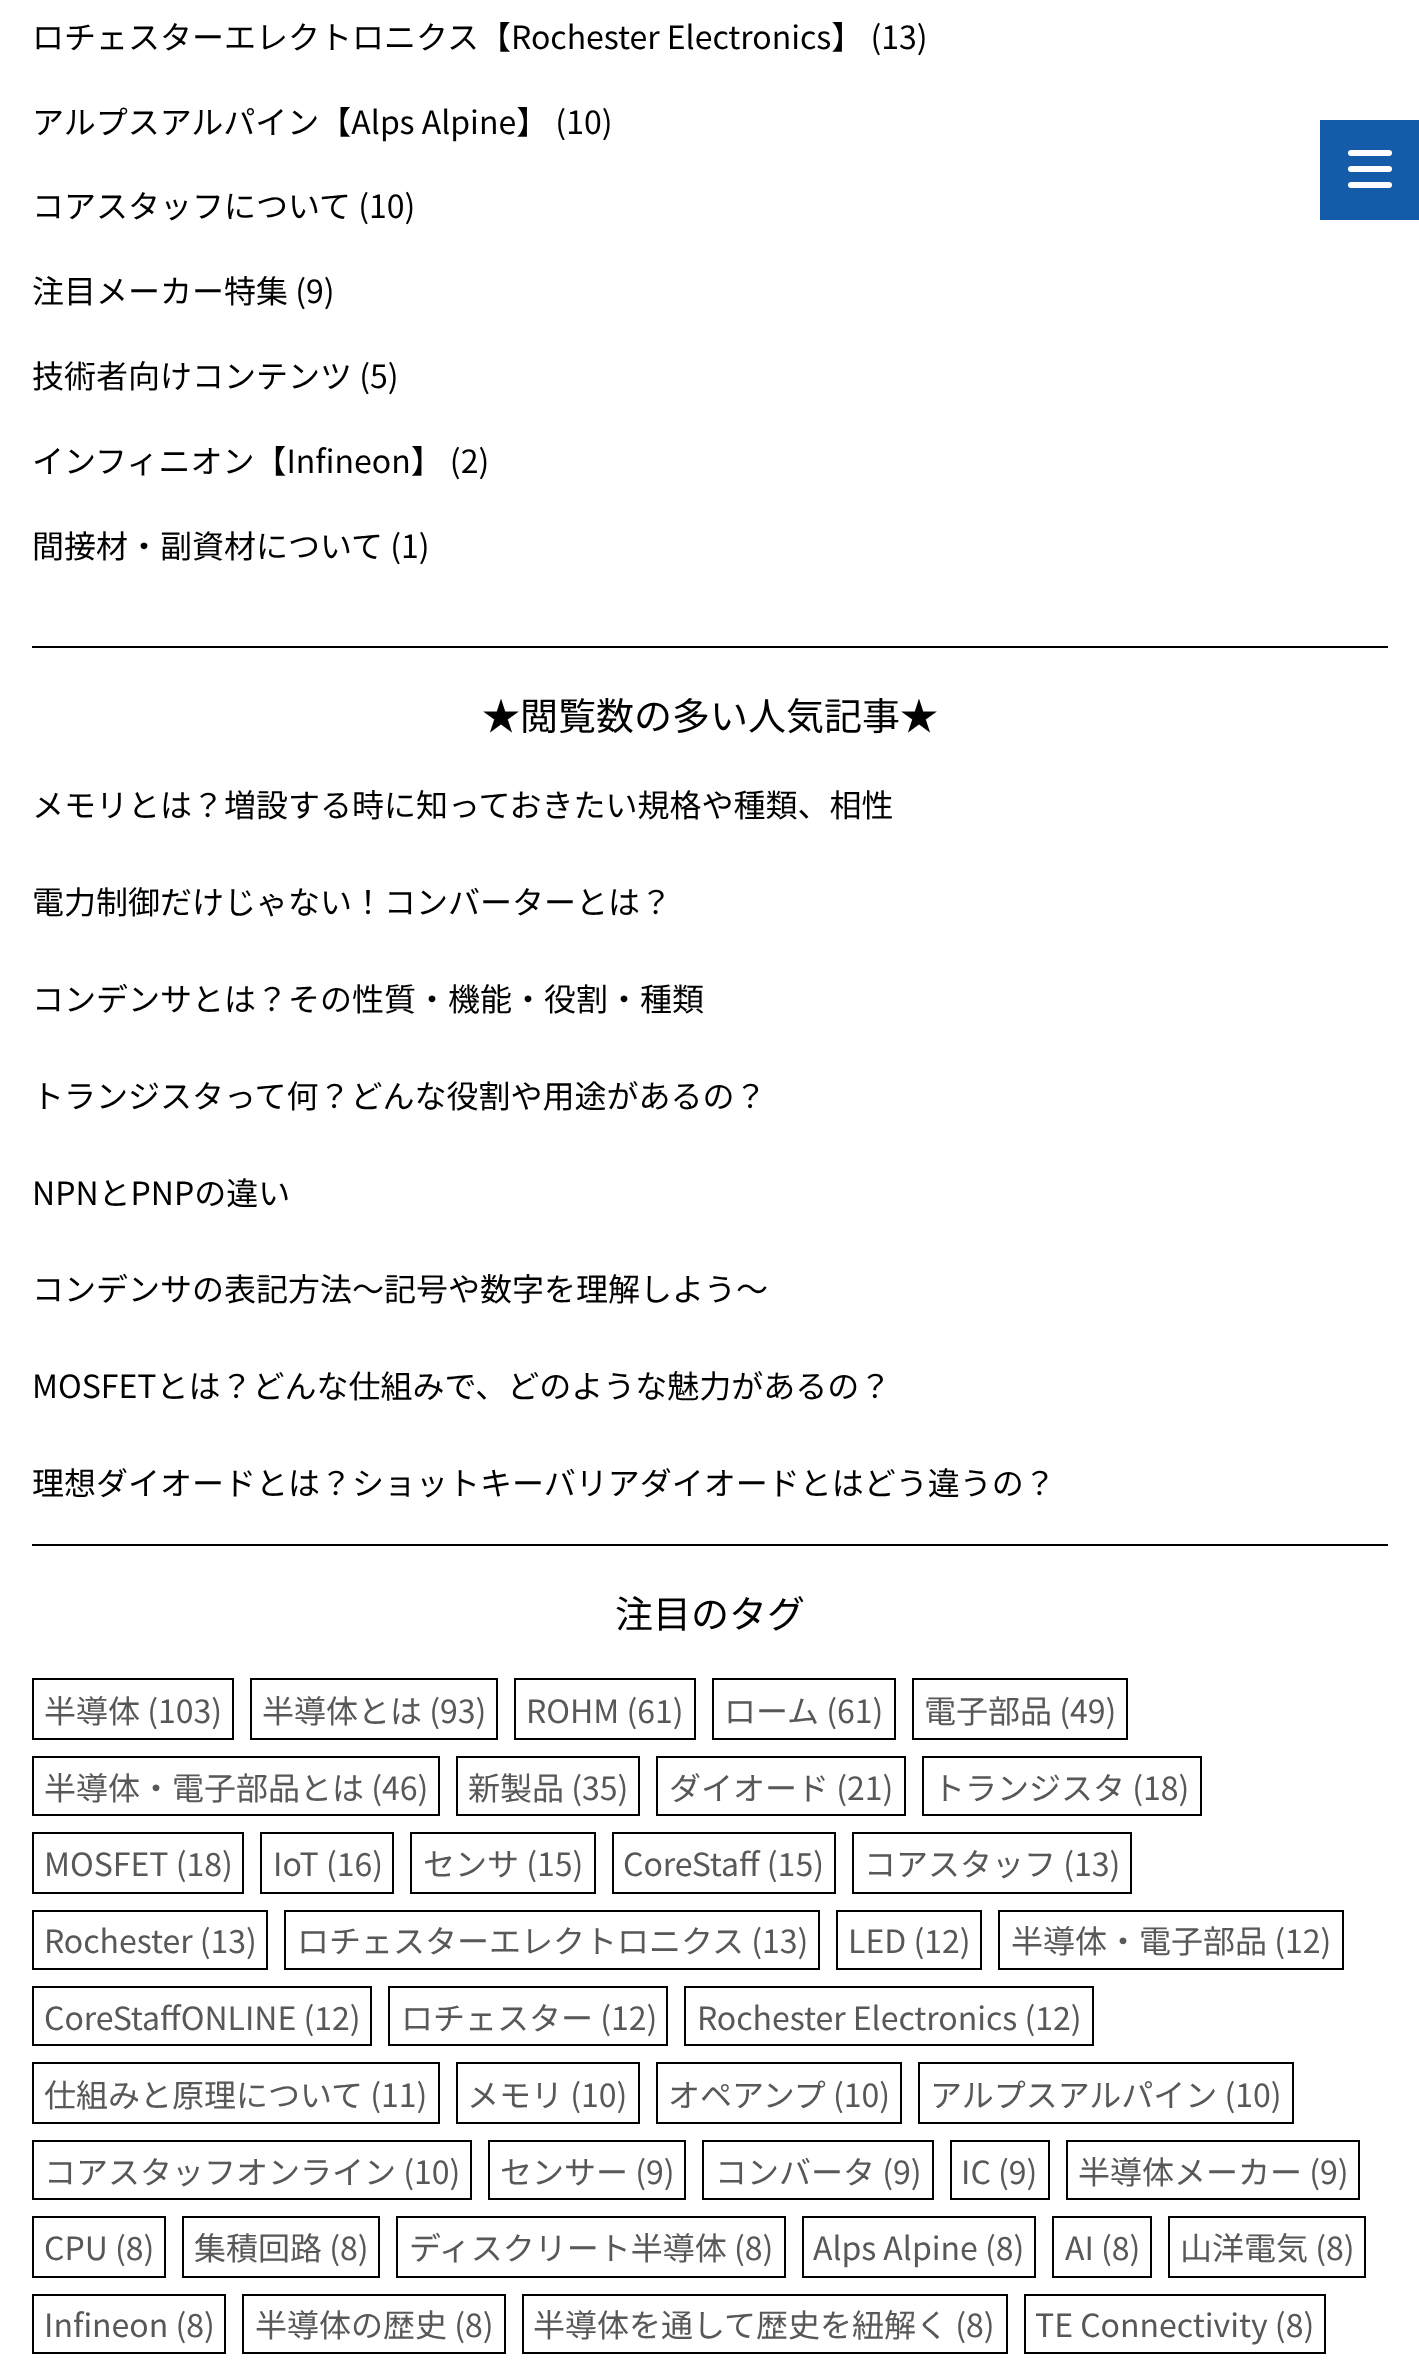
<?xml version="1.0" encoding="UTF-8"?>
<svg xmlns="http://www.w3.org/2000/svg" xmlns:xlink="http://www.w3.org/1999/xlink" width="1419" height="2378">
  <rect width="100%" height="100%" fill="#ffffff" />
  <rect x="32" y="646" width="1356" height="2" fill="#000000" />
  <rect x="32" y="1544" width="1356" height="2" fill="#000000" />
  <rect x="33" y="1679" width="200" height="60" fill="none" stroke="#000000" stroke-width="2" />
  <rect x="251" y="1679" width="246" height="60" fill="none" stroke="#000000" stroke-width="2" />
  <rect x="515" y="1679" width="180" height="60" fill="none" stroke="#000000" stroke-width="2" />
  <rect x="713" y="1679" width="182" height="60" fill="none" stroke="#000000" stroke-width="2" />
  <rect x="913" y="1679" width="214" height="60" fill="none" stroke="#000000" stroke-width="2" />
  <rect x="33" y="1757" width="406" height="58" fill="none" stroke="#000000" stroke-width="2" />
  <rect x="457" y="1757" width="182" height="58" fill="none" stroke="#000000" stroke-width="2" />
  <rect x="657" y="1757" width="248" height="58" fill="none" stroke="#000000" stroke-width="2" />
  <rect x="923" y="1757" width="278" height="58" fill="none" stroke="#000000" stroke-width="2" />
  <rect x="33" y="1833" width="210" height="60" fill="none" stroke="#000000" stroke-width="2" />
  <rect x="261" y="1833" width="132" height="60" fill="none" stroke="#000000" stroke-width="2" />
  <rect x="411" y="1833" width="184" height="60" fill="none" stroke="#000000" stroke-width="2" />
  <rect x="613" y="1833" width="222" height="60" fill="none" stroke="#000000" stroke-width="2" />
  <rect x="853" y="1833" width="278" height="60" fill="none" stroke="#000000" stroke-width="2" />
  <rect x="33" y="1911" width="234" height="58" fill="none" stroke="#000000" stroke-width="2" />
  <rect x="285" y="1911" width="534" height="58" fill="none" stroke="#000000" stroke-width="2" />
  <rect x="837" y="1911" width="144" height="58" fill="none" stroke="#000000" stroke-width="2" />
  <rect x="999" y="1911" width="344" height="58" fill="none" stroke="#000000" stroke-width="2" />
  <rect x="33" y="1987" width="338" height="58" fill="none" stroke="#000000" stroke-width="2" />
  <rect x="389" y="1987" width="278" height="58" fill="none" stroke="#000000" stroke-width="2" />
  <rect x="685" y="1987" width="408" height="58" fill="none" stroke="#000000" stroke-width="2" />
  <rect x="33" y="2063" width="406" height="60" fill="none" stroke="#000000" stroke-width="2" />
  <rect x="457" y="2063" width="182" height="60" fill="none" stroke="#000000" stroke-width="2" />
  <rect x="657" y="2063" width="244" height="60" fill="none" stroke="#000000" stroke-width="2" />
  <rect x="919" y="2063" width="374" height="60" fill="none" stroke="#000000" stroke-width="2" />
  <rect x="33" y="2141" width="438" height="58" fill="none" stroke="#000000" stroke-width="2" />
  <rect x="489" y="2141" width="196" height="58" fill="none" stroke="#000000" stroke-width="2" />
  <rect x="703" y="2141" width="230" height="58" fill="none" stroke="#000000" stroke-width="2" />
  <rect x="951" y="2141" width="98" height="58" fill="none" stroke="#000000" stroke-width="2" />
  <rect x="1067" y="2141" width="292" height="58" fill="none" stroke="#000000" stroke-width="2" />
  <rect x="33" y="2217" width="132" height="60" fill="none" stroke="#000000" stroke-width="2" />
  <rect x="183" y="2217" width="196" height="60" fill="none" stroke="#000000" stroke-width="2" />
  <rect x="397" y="2217" width="388" height="60" fill="none" stroke="#000000" stroke-width="2" />
  <rect x="803" y="2217" width="232" height="60" fill="none" stroke="#000000" stroke-width="2" />
  <rect x="1053" y="2217" width="98" height="60" fill="none" stroke="#000000" stroke-width="2" />
  <rect x="1169" y="2217" width="196" height="60" fill="none" stroke="#000000" stroke-width="2" />
  <rect x="33" y="2295" width="192" height="58" fill="none" stroke="#000000" stroke-width="2" />
  <rect x="243" y="2295" width="262" height="58" fill="none" stroke="#000000" stroke-width="2" />
  <rect x="523" y="2295" width="484" height="58" fill="none" stroke="#000000" stroke-width="2" />
  <rect x="1025" y="2295" width="300" height="58" fill="none" stroke="#000000" stroke-width="2" />
  <rect x="1320" y="120" width="99" height="100" fill="#145ca9" />
  <rect x="1348" y="150" width="44" height="6" rx="3" fill="#ffffff" />
  <rect x="1348" y="166" width="44" height="6" rx="3" fill="#ffffff" />
  <rect x="1348" y="182" width="44" height="6" rx="3" fill="#ffffff" />
  <text x="32" y="49" style="font-family: Noto Sans JP; font-size: 32px; fill: #000000">ロチェスターエレクトロニクス【Rochester Electronics】 (13)</text>
  <text x="32" y="134" style="font-family: Noto Sans JP; font-size: 32px; fill: #000000">アルプスアルパイン【Alps Alpine】 (10)</text>
  <text x="32" y="218" style="font-family: Noto Sans JP; font-size: 32px; fill: #000000">コアスタッフについて (10)</text>
  <text x="32" y="303" style="font-family: Noto Sans JP; font-size: 32px; fill: #000000">注目メーカー特集 (9)</text>
  <text x="32" y="388" style="font-family: Noto Sans JP; font-size: 32px; fill: #000000">技術者向けコンテンツ (5)</text>
  <text x="32" y="473" style="font-family: Noto Sans JP; font-size: 32px; fill: #000000">インフィニオン【Infineon】 (2)</text>
  <text x="32" y="558" style="font-family: Noto Sans JP; font-size: 32px; fill: #000000">間接材・副資材について (1)</text>
  <text x="482" y="730" style="font-family: Noto Sans JP; font-size: 38px; fill: #000000">★閲覧数の多い人気記事★</text>
  <text x="32" y="817" style="font-family: Noto Sans JP; font-size: 32px; fill: #000000">メモリとは？増設する時に知っておきたい規格や種類、相性</text>
  <text x="32" y="914" style="font-family: Noto Sans JP; font-size: 32px; fill: #000000">電力制御だけじゃない！コンバーターとは？</text>
  <text x="32" y="1011" style="font-family: Noto Sans JP; font-size: 32px; fill: #000000">コンデンサとは？その性質・機能・役割・種類</text>
  <text x="32" y="1108" style="font-family: Noto Sans JP; font-size: 32px; fill: #000000">トランジスタって何？どんな役割や用途があるの？</text>
  <text x="32" y="1205" style="font-family: Noto Sans JP; font-size: 32px; fill: #000000">NPNとPNPの違い</text>
  <text x="32" y="1301" style="font-family: Noto Sans JP; font-size: 32px; fill: #000000">コンデンサの表記方法〜記号や数字を理解しよう〜</text>
  <text x="32" y="1398" style="font-family: Noto Sans JP; font-size: 32px; fill: #000000">MOSFETとは？どんな仕組みで、どのような魅力があるの？</text>
  <text x="32" y="1495" style="font-family: Noto Sans JP; font-size: 32px; fill: #000000">理想ダイオードとは？ショットキーバリアダイオードとはどう違うの？</text>
  <text x="615" y="1628" style="font-family: Noto Sans JP; font-size: 38px; fill: #000000">注目のタグ</text>
  <text x="44" y="1723" style="font-family: Noto Sans JP; font-size: 32px; fill: #595757">半導体 (103)</text>
  <text x="262" y="1723" style="font-family: Noto Sans JP; font-size: 32px; fill: #595757">半導体とは (93)</text>
  <text x="526" y="1723" style="font-family: Noto Sans JP; font-size: 32px; fill: #595757">ROHM (61)</text>
  <text x="724" y="1723" style="font-family: Noto Sans JP; font-size: 32px; fill: #595757">ローム (61)</text>
  <text x="924" y="1723" style="font-family: Noto Sans JP; font-size: 32px; fill: #595757">電子部品 (49)</text>
  <text x="44" y="1800" style="font-family: Noto Sans JP; font-size: 32px; fill: #595757">半導体・電子部品とは (46)</text>
  <text x="468" y="1800" style="font-family: Noto Sans JP; font-size: 32px; fill: #595757">新製品 (35)</text>
  <text x="669" y="1800" style="font-family: Noto Sans JP; font-size: 32px; fill: #595757">ダイオード (21)</text>
  <text x="933" y="1800" style="font-family: Noto Sans JP; font-size: 32px; fill: #595757">トランジスタ (18)</text>
  <text x="44" y="1876" style="font-family: Noto Sans JP; font-size: 32px; fill: #595757">MOSFET (18)</text>
  <text x="273" y="1876" style="font-family: Noto Sans JP; font-size: 32px; fill: #595757">IoT (16)</text>
  <text x="423" y="1876" style="font-family: Noto Sans JP; font-size: 32px; fill: #595757">センサ (15)</text>
  <text x="623" y="1876" style="font-family: Noto Sans JP; font-size: 32px; fill: #595757">CoreStaff (15)</text>
  <text x="864" y="1876" style="font-family: Noto Sans JP; font-size: 32px; fill: #595757">コアスタッフ (13)</text>
  <text x="44" y="1953" style="font-family: Noto Sans JP; font-size: 32px; fill: #595757">Rochester (13)</text>
  <text x="297" y="1953" style="font-family: Noto Sans JP; font-size: 32px; fill: #595757">ロチェスターエレクトロニクス (13)</text>
  <text x="848" y="1953" style="font-family: Noto Sans JP; font-size: 32px; fill: #595757">LED (12)</text>
  <text x="1011" y="1953" style="font-family: Noto Sans JP; font-size: 32px; fill: #595757">半導体・電子部品 (12)</text>
  <text x="44" y="2030" style="font-family: Noto Sans JP; font-size: 32px; fill: #595757">CoreStaffONLINE (12)</text>
  <text x="401" y="2030" style="font-family: Noto Sans JP; font-size: 32px; fill: #595757">ロチェスター (12)</text>
  <text x="697" y="2030" style="font-family: Noto Sans JP; font-size: 32px; fill: #595757">Rochester Electronics (12)</text>
  <text x="44" y="2107" style="font-family: Noto Sans JP; font-size: 32px; fill: #595757">仕組みと原理について (11)</text>
  <text x="467" y="2107" style="font-family: Noto Sans JP; font-size: 32px; fill: #595757">メモリ (10)</text>
  <text x="668" y="2107" style="font-family: Noto Sans JP; font-size: 32px; fill: #595757">オペアンプ (10)</text>
  <text x="930" y="2107" style="font-family: Noto Sans JP; font-size: 32px; fill: #595757">アルプスアルパイン (10)</text>
  <text x="44" y="2184" style="font-family: Noto Sans JP; font-size: 32px; fill: #595757">コアスタッフオンライン (10)</text>
  <text x="500" y="2184" style="font-family: Noto Sans JP; font-size: 32px; fill: #595757">センサー (9)</text>
  <text x="715" y="2184" style="font-family: Noto Sans JP; font-size: 32px; fill: #595757">コンバータ (9)</text>
  <text x="961" y="2184" style="font-family: Noto Sans JP; font-size: 32px; fill: #595757">IC (9)</text>
  <text x="1078" y="2184" style="font-family: Noto Sans JP; font-size: 32px; fill: #595757">半導体メーカー (9)</text>
  <text x="44" y="2260" style="font-family: Noto Sans JP; font-size: 32px; fill: #595757">CPU (8)</text>
  <text x="194" y="2260" style="font-family: Noto Sans JP; font-size: 32px; fill: #595757">集積回路 (8)</text>
  <text x="409" y="2260" style="font-family: Noto Sans JP; font-size: 32px; fill: #595757">ディスクリート半導体 (8)</text>
  <text x="813" y="2260" style="font-family: Noto Sans JP; font-size: 32px; fill: #595757">Alps Alpine (8)</text>
  <text x="1065" y="2260" style="font-family: Noto Sans JP; font-size: 32px; fill: #595757">AI (8)</text>
  <text x="1180" y="2260" style="font-family: Noto Sans JP; font-size: 32px; fill: #595757">山洋電気 (8)</text>
  <text x="44" y="2337" style="font-family: Noto Sans JP; font-size: 32px; fill: #595757">Infineon (8)</text>
  <text x="255" y="2337" style="font-family: Noto Sans JP; font-size: 32px; fill: #595757">半導体の歴史 (8)</text>
  <text x="533" y="2337" style="font-family: Noto Sans JP; font-size: 32px; fill: #595757">半導体を通して歴史を紐解く (8)</text>
  <text x="1035" y="2337" style="font-family: Noto Sans JP; font-size: 32px; fill: #595757">TE Connectivity (8)</text>
</svg>
